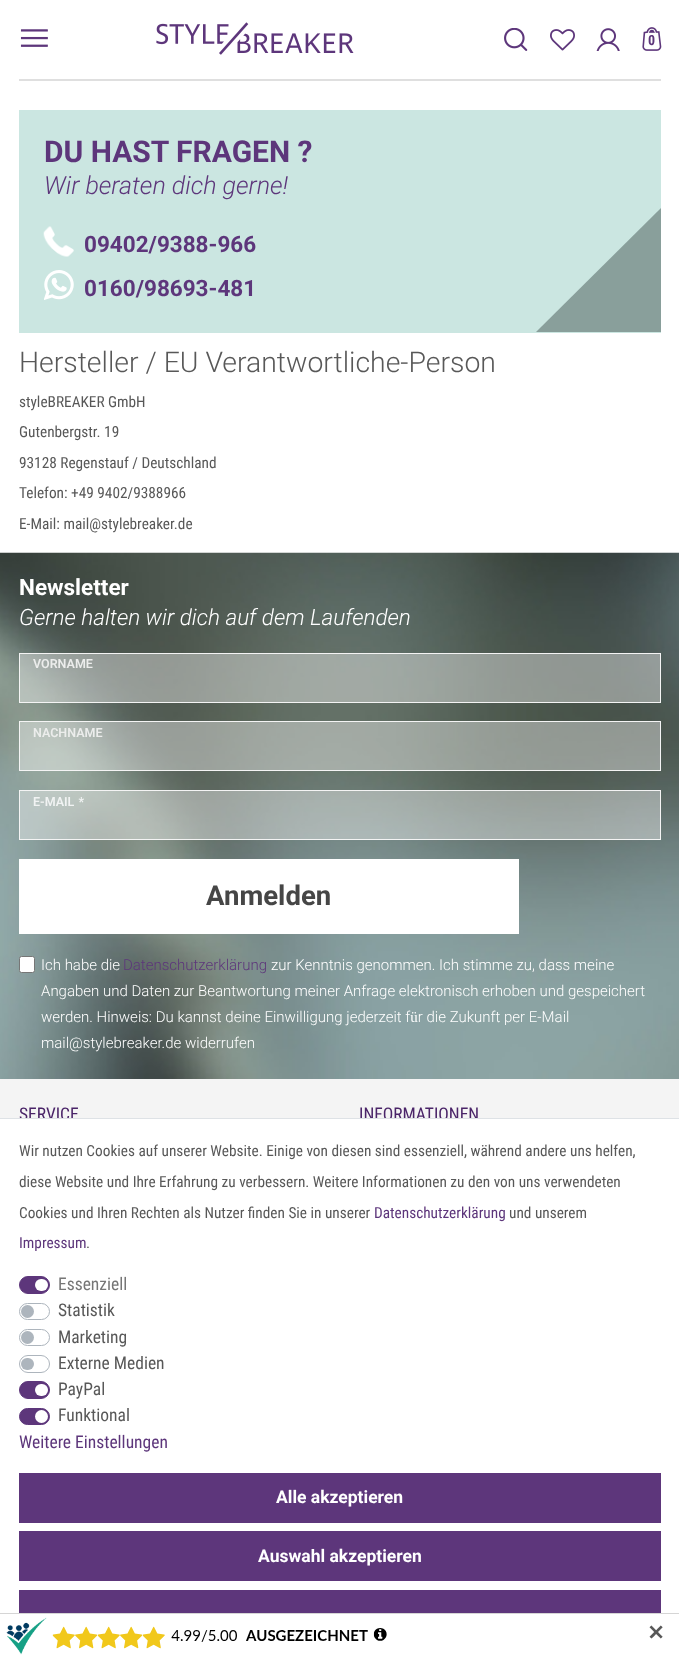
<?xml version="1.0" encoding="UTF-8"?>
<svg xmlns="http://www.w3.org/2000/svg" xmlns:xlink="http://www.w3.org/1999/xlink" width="679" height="1657">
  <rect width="100%" height="100%" fill="#f4f4f4" />
  <rect width="679" height="79" fill="#ffffff" />
  <image x="20" y="29" width="28" height="18" xlink:href="image1.png" />
  <image x="156" y="22" width="198" height="33" xlink:href="image2.png" />
  <image x="504" y="28" width="24" height="23" xlink:href="image3.png" />
  <image x="550" y="29" width="25" height="22" xlink:href="image4.png" />
  <image x="596" y="28" width="24" height="23" xlink:href="image5.png" />
  <rect x="19" y="79" width="642" height="2" fill="#dfdfdf" />
  <rect y="79" width="19" height="2" fill="#ffffff" />
  <rect x="661" y="79" width="18" height="2" fill="#ffffff" />
  <rect y="81" width="679" height="472" fill="#ffffff" />
  <rect x="19" y="110" width="642" height="223" fill="#cbe6e1" />
  <image x="43" y="226" width="31" height="31" xlink:href="image7.png" />
  <image x="44" y="270" width="30" height="30" xlink:href="image8.png" />
  <path d="M 661 208 v 124 h -125 z" fill="#899f9b" />
  <image x="0" y="552" width="679" height="527" xlink:href="image9.png" />
  <rect x="19.5" y="653.5" width="641" height="49" fill="#ffffff" fill-opacity="0.4" stroke="#f4f4f4" />
  <rect x="19.5" y="721.5" width="641" height="49" fill="#ffffff" fill-opacity="0.4" stroke="#f4f4f4" />
  <rect x="19.5" y="790.5" width="641" height="49" fill="#ffffff" fill-opacity="0.4" stroke="#f4f4f4" />
  <rect x="19" y="859" width="500" height="75" fill="#ffffff" />
  <rect x="19.5" y="956.5" width="15" height="16" rx="2" fill="#ffffff" stroke="#767676" />
  <text x="648" y="45" style="font-family: 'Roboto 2'; font-size: 14px; font-weight: bold; fill: #5d367b">0</text>
  <image x="642" y="27" width="20" height="24" xlink:href="image6.png" />
  <text x="44" y="162" style="font-family: Roboto; font-size: 30px; font-weight: bold; fill: #5d367b">DU HAST FRAGEN ?</text>
  <text x="44" y="194" style="font-family: Roboto; font-size: 25px; font-weight: 300; font-style: italic; fill: #5d367b">Wir beraten dich gerne!</text>
  <text x="84" y="252" style="font-family: Roboto; font-size: 22.5px; font-weight: bold; fill: #5d367b">09402/9388-966</text>
  <text x="84" y="296" style="font-family: Roboto; font-size: 22.5px; font-weight: bold; fill: #5d367b">0160/98693-481</text>
  <text x="19" y="372" style="font-family: Roboto; font-size: 28.4px; font-weight: 300; fill: #585858">Hersteller / EU Verantwortliche-Person</text>
  <text x="19" y="407" style="font-family: Roboto Condensed; font-size: 15.3px; fill: #585858">styleBREAKER GmbH</text>
  <text x="19" y="437" style="font-family: Roboto Condensed; font-size: 15.3px; fill: #585858">Gutenbergstr. 19</text>
  <text x="19" y="468" style="font-family: Roboto Condensed; font-size: 15.3px; fill: #585858">93128 Regenstauf / Deutschland</text>
  <text x="19" y="498" style="font-family: Roboto Condensed; font-size: 15.3px; fill: #585858">Telefon: +49 9402/9388966</text>
  <text x="19" y="529" style="font-family: Roboto Condensed; font-size: 15.3px; fill: #585858">E-Mail: mail@stylebreaker.de</text>
  <text x="19" y="595" style="font-family: Roboto; font-size: 22.5px; font-weight: bold; fill: #ffffff">Newsletter</text>
  <text x="19" y="625" style="font-family: Roboto; font-size: 22.5px; font-weight: 300; font-style: italic; fill: #ffffff">Gerne halten wir dich auf dem Laufenden</text>
  <text x="33" y="668" style="font-family: Roboto; font-size: 12.5px; font-weight: 600; fill: #ecedec">VORNAME</text>
  <text x="33" y="737" style="font-family: Roboto; font-size: 12.5px; font-weight: 600; fill: #ecedec">NACHNAME</text>
  <text x="33" y="806" word-spacing="1" style="font-family: Roboto; font-size: 12.5px; font-weight: 600; fill: #f1f3f3">E-MAIL *</text>
  <text x="206" y="905" style="font-family: Roboto; font-size: 27.5px; font-weight: bold; fill: #464646">Anmelden</text>
  <text x="41" y="970" style="font-family: Roboto; font-size: 15px; font-weight: 300; fill: #ffffff">Ich habe die</text>
  <text x="123" y="970" style="font-family: Roboto; font-size: 15px; font-weight: 300; fill: #5d367b">Datenschutzerklärung</text>
  <text x="271" y="970" style="font-family: Roboto; font-size: 15px; font-weight: 300; fill: #ffffff">zur Kenntnis genommen. Ich stimme zu, dass meine</text>
  <text x="41" y="996" style="font-family: Roboto; font-size: 15px; font-weight: 300; fill: #ffffff">Angaben und Daten zur Beantwortung meiner Anfrage elektronisch erhoben und gespeichert</text>
  <text x="41" y="1022" style="font-family: Roboto; font-size: 15px; font-weight: 300; fill: #ffffff">werden. Hinweis: Du kannst deine Einwilligung jederzeit für die Zukunft per E-Mail</text>
  <text x="41" y="1048" style="font-family: Roboto; font-size: 15px; font-weight: 300; fill: #ffffff">mail@stylebreaker.de widerrufen</text>
  <text x="19" y="1120" style="font-family: Roboto Condensed; font-size: 17.5px; fill: #4a2468">SERVICE</text>
  <text x="359" y="1120" style="font-family: Roboto Condensed; font-size: 17.5px; fill: #4a2468">INFORMATIONEN</text>
  <rect y="1119" width="679" height="538" fill="#ffffff" />
  <rect y="1118" width="679" height="1" fill="#dee2e6" />
  <text x="19" y="1156" style="font-family: Roboto Condensed; font-size: 15.3px; fill: #585858">Wir nutzen Cookies auf unserer Website. Einige von diesen sind essenziell, während andere uns helfen,</text>
  <text x="19" y="1187" style="font-family: Roboto Condensed; font-size: 15.3px; fill: #585858">diese Website und Ihre Erfahrung zu verbessern. Weitere Informationen zu den von uns verwendeten</text>
  <text x="19" y="1218" style="font-family: Roboto Condensed; font-size: 15.3px; fill: #585858">Cookies und Ihren Rechten als Nutzer finden Sie in unserer</text>
  <text x="374" y="1218" style="font-family: Roboto Condensed; font-size: 15.3px; fill: #5d367b">Datenschutzerklärung</text>
  <text x="509" y="1218" style="font-family: Roboto Condensed; font-size: 15.3px; fill: #585858">und unserem</text>
  <text x="19" y="1248" style="font-family: Roboto Condensed; font-size: 15.3px; fill: #5d367b">Impressum</text>
  <text x="86" y="1248" style="font-family: Roboto Condensed; font-size: 15.3px; fill: #585858">.</text>
  <rect x="19.5" y="1276.5" width="30" height="17" rx="8.5" fill="#5d367b" stroke="#5d367b" />
  <text x="58" y="1290" style="font-family: Roboto Condensed; font-size: 17.5px; fill: #767676">Essenziell</text>
  <rect x="35" y="1279" width="13" height="12" rx="6" fill="#ffffff" />
  <rect x="19.5" y="1303.5" width="30" height="16" rx="8" fill="none" stroke="#adb5bd" />
  <text x="58" y="1316" style="font-family: Roboto Condensed; font-size: 17.5px; fill: #585858">Statistik</text>
  <circle cx="27.5" cy="1311.5" r="6.5" fill="#adb5bd" />
  <rect x="19.5" y="1329.5" width="30" height="16" rx="8" fill="none" stroke="#adb5bd" />
  <text x="58" y="1343" style="font-family: Roboto Condensed; font-size: 17.5px; fill: #585858">Marketing</text>
  <circle cx="27.5" cy="1337.5" r="6.5" fill="#adb5bd" />
  <rect x="19.5" y="1355.5" width="30" height="17" rx="8.5" fill="none" stroke="#adb5bd" />
  <text x="58" y="1369" style="font-family: Roboto Condensed; font-size: 17.5px; fill: #585858">Externe Medien</text>
  <rect x="21" y="1358" width="13" height="12" rx="6" fill="#adb5bd" />
  <rect x="19.5" y="1381.5" width="30" height="17" rx="8.5" fill="#5d367b" stroke="#5d367b" />
  <text x="58" y="1395" style="font-family: Roboto Condensed; font-size: 17.5px; fill: #585858">PayPal</text>
  <rect x="35" y="1384" width="13" height="12" rx="6" fill="#ffffff" />
  <rect x="19.5" y="1408.5" width="30" height="16" rx="8" fill="#5d367b" stroke="#5d367b" />
  <text x="58" y="1421" style="font-family: Roboto Condensed; font-size: 17.5px; fill: #585858">Funktional</text>
  <circle cx="41.5" cy="1416.5" r="6.5" fill="#ffffff" />
  <text x="19" y="1448" style="font-family: Roboto Condensed; font-size: 17.5px; fill: #5d367b">Weitere Einstellungen</text>
  <rect x="19" y="1473" width="642" height="50" fill="#5d367b" />
  <text x="276" y="1503" style="font-family: Roboto; font-size: 17.5px; font-weight: bold; fill: #ffffff">Alle akzeptieren</text>
  <rect x="19" y="1531" width="642" height="50" fill="#5d367b" />
  <text x="258" y="1562" style="font-family: Roboto; font-size: 17.5px; font-weight: bold; fill: #ffffff">Auswahl akzeptieren</text>
  <rect x="19" y="1590" width="642" height="23" fill="#5d367b" />
  <image x="0" y="1613" width="679" height="42" xlink:href="image10.png" />
  <text x="647" y="1640" style="font-family: DejaVu Sans; font-size: 21px; font-weight: bold; fill: #585858">✕</text>
</svg>
